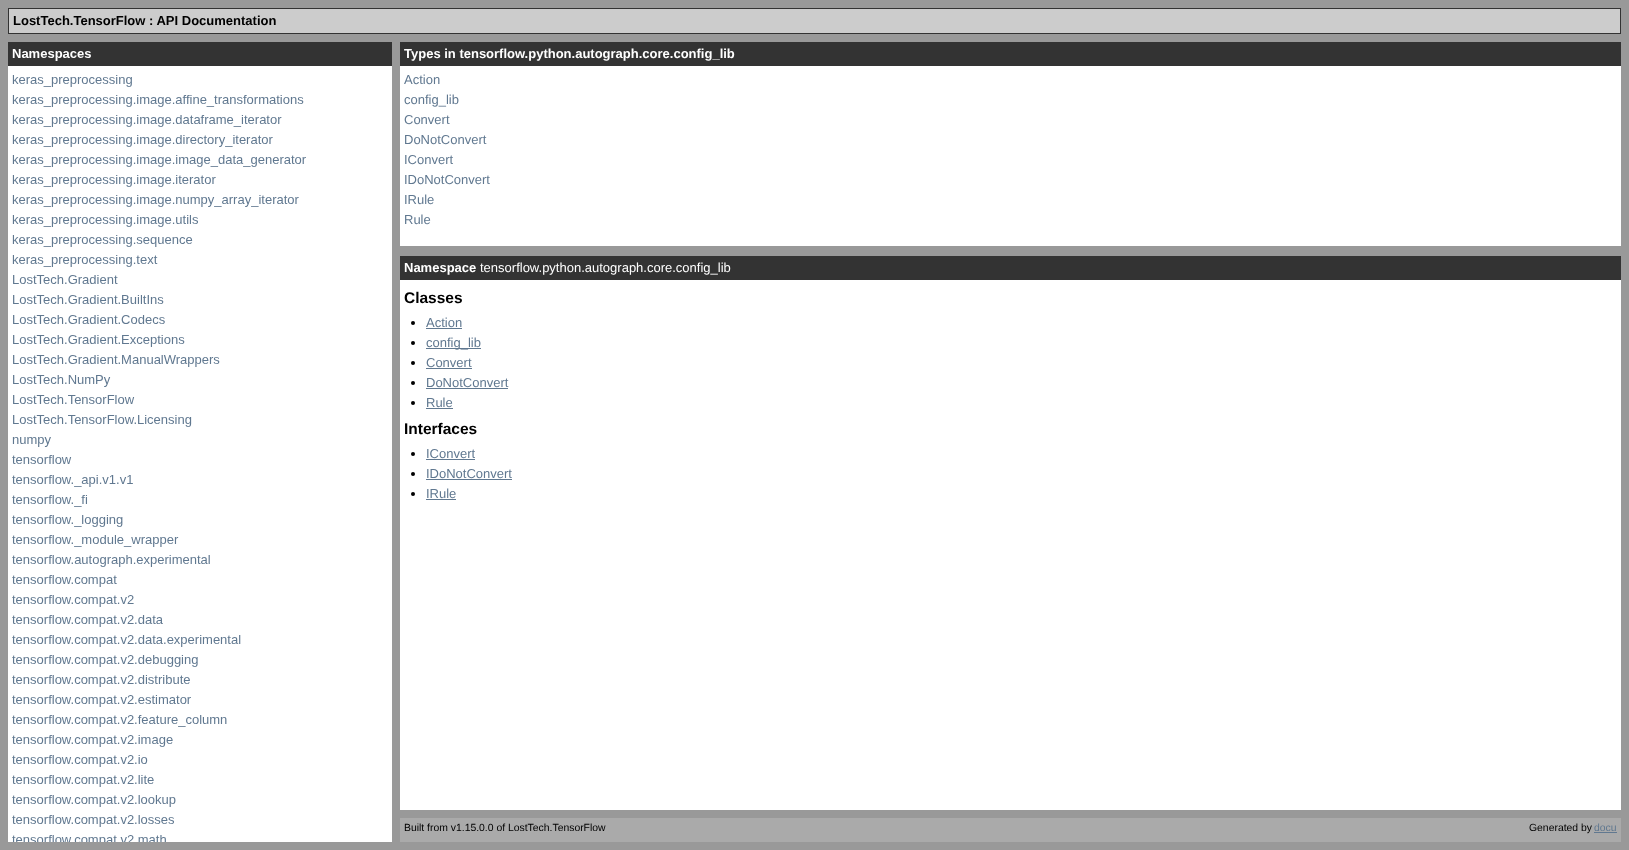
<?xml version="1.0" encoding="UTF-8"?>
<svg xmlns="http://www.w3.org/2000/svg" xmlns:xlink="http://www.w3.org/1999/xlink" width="1629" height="850">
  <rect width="100%" height="100%" fill="#999999" />
  <rect x="8.5" y="8.5" width="1612" height="25" fill="#cccccc" stroke="#333333" />
  <image x="8" y="42" width="384" height="800" xlink:href="image1.png" />
  <rect x="400" y="66" width="1221" height="180" fill="#ffffff" />
  <rect x="400" y="42" width="1221" height="24" fill="#333333" />
  <rect x="400" y="280" width="1221" height="530" fill="#ffffff" />
  <rect x="400" y="256" width="1221" height="24" fill="#333333" />
  <circle cx="413" cy="323" r="2" fill="#000000" />
  <rect x="426" y="328" width="36" height="1" fill="#607890" />
  <circle cx="413" cy="343" r="2" fill="#000000" />
  <rect x="426" y="348" width="55" height="1" fill="#607890" />
  <circle cx="413" cy="363" r="2" fill="#000000" />
  <rect x="426" y="368" width="46" height="1" fill="#607890" />
  <circle cx="413" cy="383" r="2" fill="#000000" />
  <rect x="426" y="388" width="82" height="1" fill="#607890" />
  <circle cx="413" cy="403" r="2" fill="#000000" />
  <rect x="426" y="408" width="27" height="1" fill="#607890" />
  <circle cx="413" cy="454" r="2" fill="#000000" />
  <rect x="426" y="459" width="49" height="1" fill="#607890" />
  <circle cx="413" cy="474" r="2" fill="#000000" />
  <rect x="426" y="479" width="86" height="1" fill="#607890" />
  <circle cx="413" cy="494" r="2" fill="#000000" />
  <rect x="426" y="499" width="30" height="1" fill="#607890" />
  <rect x="400" y="818" width="1221" height="24" fill="#aaaaaa" />
  <rect x="1594" y="832" width="23" height="1" fill="#607890" />
  <text x="13" y="25" style="font-family: Liberation Sans; font-size: 13px; font-weight: bold; fill: #000000">LostTech.TensorFlow : API Documentation</text>
  <text x="404" y="58" style="font-family: Liberation Sans; font-size: 13px; font-weight: bold; fill: #ffffff">Types in tensorflow.python.autograph.core.config_lib</text>
  <text x="404" y="84" style="font-family: Liberation Sans; font-size: 13px; fill: #607890">Action</text>
  <text x="404" y="104" style="font-family: Liberation Sans; font-size: 13px; fill: #607890">config_lib</text>
  <text x="404" y="124" style="font-family: Liberation Sans; font-size: 13px; fill: #607890">Convert</text>
  <text x="404" y="144" style="font-family: Liberation Sans; font-size: 13px; fill: #607890">DoNotConvert</text>
  <text x="404" y="164" style="font-family: Liberation Sans; font-size: 13px; fill: #607890">IConvert</text>
  <text x="404" y="184" style="font-family: Liberation Sans; font-size: 13px; fill: #607890">IDoNotConvert</text>
  <text x="404" y="204" style="font-family: Liberation Sans; font-size: 13px; fill: #607890">IRule</text>
  <text x="404" y="224" style="font-family: Liberation Sans; font-size: 13px; fill: #607890">Rule</text>
  <text x="404" y="272" style="font-family: Liberation Sans; font-size: 13px; font-weight: bold; fill: #ffffff">Namespace</text>
  <text x="480" y="272" style="font-family: Liberation Sans; font-size: 13px; fill: #ffffff">tensorflow.python.autograph.core.config_lib</text>
  <text x="404" y="303" style="font-family: Liberation Sans; font-size: 15.5px; font-weight: bold; fill: #000000">Classes</text>
  <text x="426" y="327" style="font-family: Liberation Sans; font-size: 13px; fill: #607890">Action</text>
  <text x="426" y="347" style="font-family: Liberation Sans; font-size: 13px; fill: #607890">config_lib</text>
  <text x="426" y="367" style="font-family: Liberation Sans; font-size: 13px; fill: #607890">Convert</text>
  <text x="426" y="387" style="font-family: Liberation Sans; font-size: 13px; fill: #607890">DoNotConvert</text>
  <text x="426" y="407" style="font-family: Liberation Sans; font-size: 13px; fill: #607890">Rule</text>
  <text x="404" y="434" style="font-family: Liberation Sans; font-size: 15.5px; font-weight: bold; fill: #000000">Interfaces</text>
  <text x="426" y="458" style="font-family: Liberation Sans; font-size: 13px; fill: #607890">IConvert</text>
  <text x="426" y="478" style="font-family: Liberation Sans; font-size: 13px; fill: #607890">IDoNotConvert</text>
  <text x="426" y="498" style="font-family: Liberation Sans; font-size: 13px; fill: #607890">IRule</text>
  <text x="404" y="831" style="font-family: Liberation Sans; font-size: 10.4px; fill: #000000">Built from v1.15.0.0 of LostTech.TensorFlow</text>
  <text x="1529" y="831" style="font-family: Liberation Sans; font-size: 10.4px; fill: #000000">Generated by</text>
  <text x="1594" y="831" style="font-family: Liberation Sans; font-size: 10.4px; fill: #607890">docu</text>
</svg>
